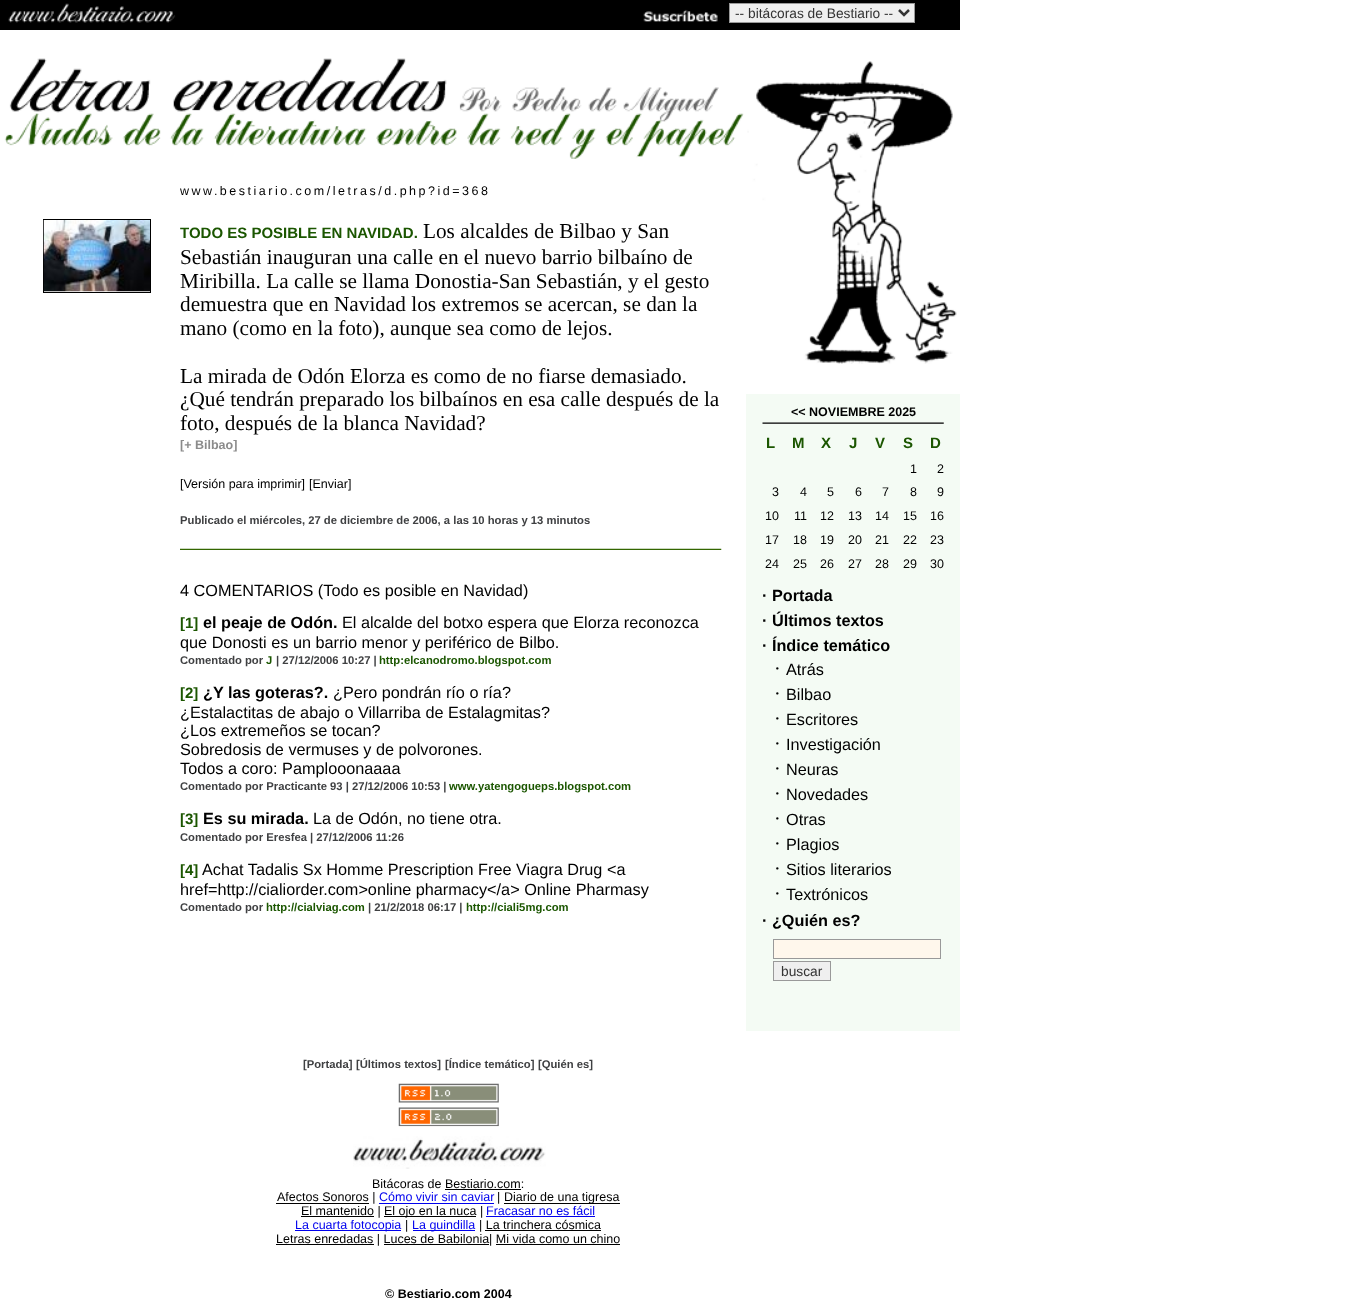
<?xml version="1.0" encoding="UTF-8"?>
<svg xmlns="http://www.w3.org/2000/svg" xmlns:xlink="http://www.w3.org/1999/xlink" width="1371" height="1298">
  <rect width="100%" height="100%" fill="#ffffff" />
  <rect width="960" height="30" fill="#000000" />
  <image x="8" y="3" width="710" height="20" xlink:href="image1.png" />
  <rect x="729.5" y="3.5" width="185" height="19" fill="#efefef" stroke="#999999" />
  <path d="M 899 10 l 5 5 l 5 -5" fill="none" stroke="#333333" stroke-width="2.5" />
  <image x="4" y="58" width="740" height="101" xlink:href="image2.png" />
  <rect x="43.5" y="219.5" width="107" height="73" fill="none" stroke="#000000" />
  <image x="43" y="220" width="107" height="72" xlink:href="image3.png" />
  <image x="180" y="548" width="542" height="2" xlink:href="image4.png" />
  <image x="747" y="61" width="210" height="303" xlink:href="image5.png" />
  <rect x="746" y="394" width="214" height="637" fill="#f4fbf4" />
  <image x="762" y="422" width="182" height="2" xlink:href="image6.png" />
  <rect x="773.5" y="939.5" width="167" height="19" fill="#fff7ec" stroke="#999999" />
  <rect x="773.5" y="961.5" width="57" height="19" fill="#efefef" stroke="#999999" />
  <image x="398" y="1083" width="101" height="20" xlink:href="image7.png" />
  <image x="398" y="1107" width="101" height="20" xlink:href="image8.png" />
  <image x="353" y="1126" width="193" height="43" xlink:href="image9.png" />
  <rect x="445" y="1189" width="76" height="1" fill="#000000" />
  <rect x="276" y="1203" width="93" height="1" fill="#000000" />
  <rect x="379" y="1203" width="115" height="1" fill="#0000ee" />
  <rect x="504" y="1203" width="116" height="1" fill="#000000" />
  <rect x="301" y="1216" width="73" height="1" fill="#000000" />
  <rect x="384" y="1216" width="92" height="1" fill="#000000" />
  <rect x="486" y="1216" width="109" height="1" fill="#0000ee" />
  <rect x="295" y="1230" width="106" height="1" fill="#0000ee" />
  <rect x="413" y="1230" width="62" height="1" fill="#0000ee" />
  <rect x="485" y="1230" width="116" height="1" fill="#000000" />
  <rect x="276" y="1244" width="98" height="1" fill="#000000" />
  <rect x="384" y="1244" width="105" height="1" fill="#000000" />
  <rect x="496" y="1244" width="124" height="1" fill="#000000" />
  <text x="735" y="18" style="font-family: Liberation Sans; font-size: 13.75px; fill: #333333">-- bitácoras de Bestiario --</text>
  <text x="180" y="195" style="font-family: Liberation Sans; font-size: 12.5px; letter-spacing: 2.5px; fill: #000000">www.bestiario.com/letras/d.php?id=368</text>
  <text x="180" y="238" style="font-family: Liberation Sans; font-size: 15px; font-weight: bold; fill: #1b5600">TODO ES POSIBLE EN NAVIDAD.</text>
  <text x="423" y="238" style="font-family: Liberation Serif; font-size: 21.25px; fill: #000000">Los alcaldes de Bilbao y San</text>
  <text x="180" y="264" style="font-family: Liberation Serif; font-size: 21.25px; fill: #000000">Sebastián inauguran una calle en el nuevo barrio bilbaíno de</text>
  <text x="180" y="288" style="font-family: Liberation Serif; font-size: 21.25px; fill: #000000">Miribilla. La calle se llama Donostia-San Sebastián, y el gesto</text>
  <text x="180" y="311" style="font-family: Liberation Serif; font-size: 21.25px; fill: #000000">demuestra que en Navidad los extremos se acercan, se dan la</text>
  <text x="180" y="335" style="font-family: Liberation Serif; font-size: 21.25px; fill: #000000">mano (como en la foto), aunque sea como de lejos.</text>
  <text x="180" y="383" style="font-family: Liberation Serif; font-size: 21.25px; fill: #000000">La mirada de Odón Elorza es como de no fiarse demasiado.</text>
  <text x="180" y="406" style="font-family: Liberation Serif; font-size: 21.25px; fill: #000000">¿Qué tendrán preparado los bilbaínos en esa calle después de la</text>
  <text x="180" y="430" style="font-family: Liberation Serif; font-size: 21.25px; fill: #000000">foto, después de la blanca Navidad?</text>
  <text x="180" y="449" style="font-family: Liberation Sans; font-size: 12.5px; font-weight: bold; fill: #8b8b8b">[+ Bilbao]</text>
  <text x="180" y="488" style="font-family: Liberation Sans; font-size: 12.5px; fill: #000000">[Versión para imprimir]</text>
  <text x="309" y="488" style="font-family: Liberation Sans; font-size: 12.5px; fill: #000000">[Enviar]</text>
  <text x="180" y="524" style="font-family: Liberation Sans; font-size: 11.25px; font-weight: bold; fill: #3f4042">Publicado el miércoles, 27 de diciembre de 2006, a las 10 horas y 13 minutos</text>
  <text x="180" y="596" style="font-family: Liberation Sans; font-size: 16.25px; fill: #000000">4 COMENTARIOS (Todo es posible en Navidad)</text>
  <text x="180" y="628" style="font-family: Liberation Sans; font-size: 15px; font-weight: bold; fill: #1b5600">[1]</text>
  <text x="203" y="628" style="font-family: Liberation Sans; font-size: 16.25px; font-weight: bold; fill: #000000">el peaje de Odón.</text>
  <text x="342" y="628" style="font-family: Liberation Sans; font-size: 16.25px; fill: #000000">El alcalde del botxo espera que Elorza reconozca</text>
  <text x="180" y="648" style="font-family: Liberation Sans; font-size: 16.25px; fill: #000000">que Donosti es un barrio menor y periférico de Bilbo.</text>
  <text x="180" y="664" style="font-family: Liberation Sans; font-size: 11.25px; font-weight: bold; fill: #3f4042">Comentado por</text>
  <text x="266" y="664" style="font-family: Liberation Sans; font-size: 11.25px; font-weight: bold; fill: #1b5600">J</text>
  <text x="276" y="664" style="font-family: Liberation Sans; font-size: 11.25px; font-weight: bold; fill: #3f4042">| 27/12/2006 10:27 |</text>
  <text x="379" y="664" style="font-family: Liberation Sans; font-size: 11.25px; font-weight: bold; fill: #1b5600">http:elcanodromo.blogspot.com</text>
  <text x="180" y="698" style="font-family: Liberation Sans; font-size: 15px; font-weight: bold; fill: #1b5600">[2]</text>
  <text x="203" y="698" style="font-family: Liberation Sans; font-size: 16.25px; font-weight: bold; fill: #000000">¿Y las goteras?.</text>
  <text x="333" y="698" style="font-family: Liberation Sans; font-size: 16.25px; fill: #000000">¿Pero pondrán río o ría?</text>
  <text x="180" y="718" style="font-family: Liberation Sans; font-size: 16.25px; fill: #000000">¿Estalactitas de abajo o Villarriba de Estalagmitas?</text>
  <text x="180" y="736" style="font-family: Liberation Sans; font-size: 16.25px; fill: #000000">¿Los extremeños se tocan?</text>
  <text x="180" y="755" style="font-family: Liberation Sans; font-size: 16.25px; fill: #000000">Sobredosis de vermuses y de polvorones.</text>
  <text x="180" y="774" style="font-family: Liberation Sans; font-size: 16.25px; fill: #000000">Todos a coro: Pamplooonaaaa</text>
  <text x="180" y="790" style="font-family: Liberation Sans; font-size: 11.25px; font-weight: bold; fill: #3f4042">Comentado por Practicante 93 | 27/12/2006 10:53 |</text>
  <text x="449" y="790" style="font-family: Liberation Sans; font-size: 11.25px; font-weight: bold; fill: #1b5600">www.yatengogueps.blogspot.com</text>
  <text x="180" y="824" style="font-family: Liberation Sans; font-size: 15px; font-weight: bold; fill: #1b5600">[3]</text>
  <text x="203" y="824" style="font-family: Liberation Sans; font-size: 16.25px; font-weight: bold; fill: #000000">Es su mirada.</text>
  <text x="313" y="824" style="font-family: Liberation Sans; font-size: 16.25px; fill: #000000">La de Odón, no tiene otra.</text>
  <text x="180" y="841" style="font-family: Liberation Sans; font-size: 11.25px; font-weight: bold; fill: #3f4042">Comentado por Eresfea | 27/12/2006 11:26</text>
  <text x="180" y="875" style="font-family: Liberation Sans; font-size: 15px; font-weight: bold; fill: #1b5600">[4]</text>
  <text x="202" y="875" style="font-family: Liberation Sans; font-size: 16.25px; fill: #000000">Achat Tadalis Sx Homme Prescription Free Viagra Drug &lt;a</text>
  <text x="180" y="895" style="font-family: Liberation Sans; font-size: 16.25px; fill: #000000">href=http://cialiorder.com&gt;online pharmacy&lt;/a&gt; Online Pharmasy</text>
  <text x="180" y="911" style="font-family: Liberation Sans; font-size: 11.25px; font-weight: bold; fill: #3f4042">Comentado por</text>
  <text x="266" y="911" style="font-family: Liberation Sans; font-size: 11.25px; font-weight: bold; fill: #1b5600">http://cialviag.com</text>
  <text x="368" y="911" style="font-family: Liberation Sans; font-size: 11.25px; font-weight: bold; fill: #3f4042">| 21/2/2018 06:17 |</text>
  <text x="466" y="911" style="font-family: Liberation Sans; font-size: 11.25px; font-weight: bold; fill: #1b5600">http://ciali5mg.com</text>
  <text x="791" y="416" style="font-family: Liberation Sans; font-size: 12.5px; font-weight: bold; fill: #000000">&lt;&lt; NOVIEMBRE 2025</text>
  <text x="766" y="448" style="font-family: Liberation Sans; font-size: 15px; font-weight: bold; fill: #1b5600">L</text>
  <text x="792" y="448" style="font-family: Liberation Sans; font-size: 15px; font-weight: bold; fill: #1b5600">M</text>
  <text x="821" y="448" style="font-family: Liberation Sans; font-size: 15px; font-weight: bold; fill: #1b5600">X</text>
  <text x="849" y="448" style="font-family: Liberation Sans; font-size: 15px; font-weight: bold; fill: #1b5600">J</text>
  <text x="875" y="448" style="font-family: Liberation Sans; font-size: 15px; font-weight: bold; fill: #1b5600">V</text>
  <text x="903" y="448" style="font-family: Liberation Sans; font-size: 15px; font-weight: bold; fill: #1b5600">S</text>
  <text x="930" y="448" style="font-family: Liberation Sans; font-size: 15px; font-weight: bold; fill: #1b5600">D</text>
  <text x="910" y="473" style="font-family: Liberation Sans; font-size: 12.5px; fill: #000000">1</text>
  <text x="937" y="473" style="font-family: Liberation Sans; font-size: 12.5px; fill: #000000">2</text>
  <text x="772" y="496" style="font-family: Liberation Sans; font-size: 12.5px; fill: #000000">3</text>
  <text x="800" y="496" style="font-family: Liberation Sans; font-size: 12.5px; fill: #000000">4</text>
  <text x="827" y="496" style="font-family: Liberation Sans; font-size: 12.5px; fill: #000000">5</text>
  <text x="855" y="496" style="font-family: Liberation Sans; font-size: 12.5px; fill: #000000">6</text>
  <text x="882" y="496" style="font-family: Liberation Sans; font-size: 12.5px; fill: #000000">7</text>
  <text x="910" y="496" style="font-family: Liberation Sans; font-size: 12.5px; fill: #000000">8</text>
  <text x="937" y="496" style="font-family: Liberation Sans; font-size: 12.5px; fill: #000000">9</text>
  <text x="765" y="520" style="font-family: Liberation Sans; font-size: 12.5px; fill: #000000">10</text>
  <text x="794" y="520" style="font-family: Liberation Sans; font-size: 12.5px; fill: #000000">11</text>
  <text x="820" y="520" style="font-family: Liberation Sans; font-size: 12.5px; fill: #000000">12</text>
  <text x="848" y="520" style="font-family: Liberation Sans; font-size: 12.5px; fill: #000000">13</text>
  <text x="875" y="520" style="font-family: Liberation Sans; font-size: 12.5px; fill: #000000">14</text>
  <text x="903" y="520" style="font-family: Liberation Sans; font-size: 12.5px; fill: #000000">15</text>
  <text x="930" y="520" style="font-family: Liberation Sans; font-size: 12.5px; fill: #000000">16</text>
  <text x="765" y="544" style="font-family: Liberation Sans; font-size: 12.5px; fill: #000000">17</text>
  <text x="793" y="544" style="font-family: Liberation Sans; font-size: 12.5px; fill: #000000">18</text>
  <text x="820" y="544" style="font-family: Liberation Sans; font-size: 12.5px; fill: #000000">19</text>
  <text x="848" y="544" style="font-family: Liberation Sans; font-size: 12.5px; fill: #000000">20</text>
  <text x="875" y="544" style="font-family: Liberation Sans; font-size: 12.5px; fill: #000000">21</text>
  <text x="903" y="544" style="font-family: Liberation Sans; font-size: 12.5px; fill: #000000">22</text>
  <text x="930" y="544" style="font-family: Liberation Sans; font-size: 12.5px; fill: #000000">23</text>
  <text x="765" y="568" style="font-family: Liberation Sans; font-size: 12.5px; fill: #000000">24</text>
  <text x="793" y="568" style="font-family: Liberation Sans; font-size: 12.5px; fill: #000000">25</text>
  <text x="820" y="568" style="font-family: Liberation Sans; font-size: 12.5px; fill: #000000">26</text>
  <text x="848" y="568" style="font-family: Liberation Sans; font-size: 12.5px; fill: #000000">27</text>
  <text x="875" y="568" style="font-family: Liberation Sans; font-size: 12.5px; fill: #000000">28</text>
  <text x="903" y="568" style="font-family: Liberation Sans; font-size: 12.5px; fill: #000000">29</text>
  <text x="930" y="568" style="font-family: Liberation Sans; font-size: 12.5px; fill: #000000">30</text>
  <text x="762" y="601" style="font-family: Liberation Sans; font-size: 16.25px; font-weight: bold; fill: #000000">· Portada</text>
  <text x="762" y="626" style="font-family: Liberation Sans; font-size: 16.25px; font-weight: bold; fill: #000000">· Últimos textos</text>
  <text x="762" y="651" style="font-family: Liberation Sans; font-size: 16.25px; font-weight: bold; fill: #000000">· Índice temático</text>
  <text x="774" y="675" style="font-family: Liberation Serif; font-size: 20px; fill: #000000">·</text>
  <text x="786" y="675" style="font-family: Liberation Sans; font-size: 16.25px; fill: #000000">Atrás</text>
  <text x="774" y="700" style="font-family: Liberation Serif; font-size: 20px; fill: #000000">·</text>
  <text x="786" y="700" style="font-family: Liberation Sans; font-size: 16.25px; fill: #000000">Bilbao</text>
  <text x="774" y="725" style="font-family: Liberation Serif; font-size: 20px; fill: #000000">·</text>
  <text x="786" y="725" style="font-family: Liberation Sans; font-size: 16.25px; fill: #000000">Escritores</text>
  <text x="774" y="750" style="font-family: Liberation Serif; font-size: 20px; fill: #000000">·</text>
  <text x="786" y="750" style="font-family: Liberation Sans; font-size: 16.25px; fill: #000000">Investigación</text>
  <text x="774" y="775" style="font-family: Liberation Serif; font-size: 20px; fill: #000000">·</text>
  <text x="786" y="775" style="font-family: Liberation Sans; font-size: 16.25px; fill: #000000">Neuras</text>
  <text x="774" y="800" style="font-family: Liberation Serif; font-size: 20px; fill: #000000">·</text>
  <text x="786" y="800" style="font-family: Liberation Sans; font-size: 16.25px; fill: #000000">Novedades</text>
  <text x="774" y="825" style="font-family: Liberation Serif; font-size: 20px; fill: #000000">·</text>
  <text x="786" y="825" style="font-family: Liberation Sans; font-size: 16.25px; fill: #000000">Otras</text>
  <text x="774" y="850" style="font-family: Liberation Serif; font-size: 20px; fill: #000000">·</text>
  <text x="786" y="850" style="font-family: Liberation Sans; font-size: 16.25px; fill: #000000">Plagios</text>
  <text x="774" y="875" style="font-family: Liberation Serif; font-size: 20px; fill: #000000">·</text>
  <text x="786" y="875" style="font-family: Liberation Sans; font-size: 16.25px; fill: #000000">Sitios literarios</text>
  <text x="774" y="900" style="font-family: Liberation Serif; font-size: 20px; fill: #000000">·</text>
  <text x="786" y="900" style="font-family: Liberation Sans; font-size: 16.25px; fill: #000000">Textrónicos</text>
  <text x="762" y="926" style="font-family: Liberation Sans; font-size: 16.25px; font-weight: bold; fill: #000000">· ¿Quién es?</text>
  <text x="781" y="976" style="font-family: Liberation Sans; font-size: 13.75px; fill: #333333">buscar</text>
  <text x="303" y="1068" style="font-family: Liberation Sans; font-size: 11.25px; font-weight: bold; fill: #3f4042">[Portada]</text>
  <text x="356" y="1068" style="font-family: Liberation Sans; font-size: 11.25px; font-weight: bold; fill: #3f4042">[Últimos textos]</text>
  <text x="445" y="1068" style="font-family: Liberation Sans; font-size: 11.25px; font-weight: bold; fill: #3f4042">[Índice temático]</text>
  <text x="538" y="1068" style="font-family: Liberation Sans; font-size: 11.25px; font-weight: bold; fill: #3f4042">[Quién es]</text>
  <text x="372" y="1188" style="font-family: Liberation Sans; font-size: 12.5px; fill: #000000">Bitácoras de Bestiario.com:</text>
  <text x="277" y="1201" style="font-family: Liberation Sans; font-size: 12.5px; fill: #000000">Afectos Sonoros |</text>
  <text x="379" y="1201" style="font-family: Liberation Sans; font-size: 12.5px; fill: #0000ee">Cómo vivir sin caviar</text>
  <text x="497" y="1201" style="font-family: Liberation Sans; font-size: 12.5px; fill: #000000">|</text>
  <text x="504" y="1201" style="font-family: Liberation Sans; font-size: 12.5px; fill: #000000">Diario de una tigresa</text>
  <text x="301" y="1215" style="font-family: Liberation Sans; font-size: 12.5px; fill: #000000">El mantenido |</text>
  <text x="384" y="1215" style="font-family: Liberation Sans; font-size: 12.5px; fill: #000000">El ojo en la nuca |</text>
  <text x="486" y="1215" style="font-family: Liberation Sans; font-size: 12.5px; fill: #0000ee">Fracasar no es fácil</text>
  <text x="295" y="1229" style="font-family: Liberation Sans; font-size: 12.5px; fill: #0000ee">La cuarta fotocopia</text>
  <text x="405" y="1229" style="font-family: Liberation Sans; font-size: 12.5px; fill: #000000">|</text>
  <text x="412" y="1229" style="font-family: Liberation Sans; font-size: 12.5px; fill: #0000ee">La guindilla</text>
  <text x="479" y="1229" style="font-family: Liberation Sans; font-size: 12.5px; fill: #000000">| La trinchera cósmica</text>
  <text x="276" y="1243" style="font-family: Liberation Sans; font-size: 12.5px; fill: #000000">Letras enredadas | Luces de Babilonia| Mi vida como un chino</text>
  <text x="385" y="1298" style="font-family: Liberation Sans; font-size: 12.5px; font-weight: bold; fill: #000000">© Bestiario.com 2004</text>
</svg>
